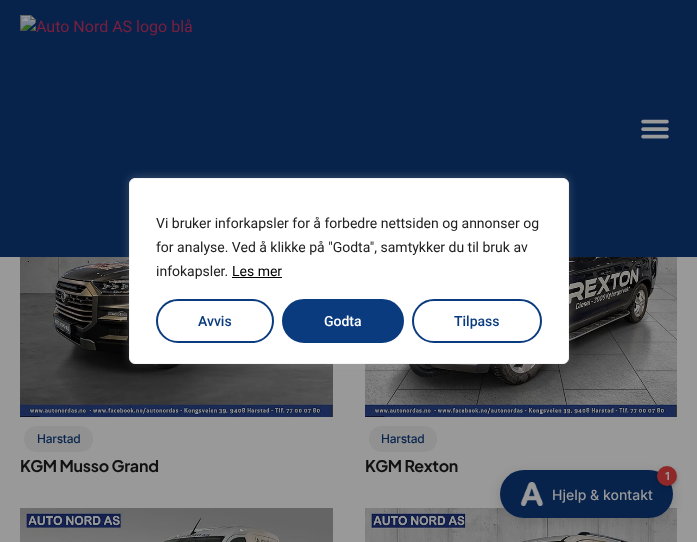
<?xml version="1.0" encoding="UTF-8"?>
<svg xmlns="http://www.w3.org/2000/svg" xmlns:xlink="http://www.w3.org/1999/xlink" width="697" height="542">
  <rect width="100%" height="100%" fill="#999999" />
  <rect width="697" height="257" fill="#07234c" />
  <image x="20" y="15" width="172" height="21" xlink:href="image1.png" />
  <image x="641" y="119" width="28" height="20" xlink:href="image2.png" />
  <image x="20" y="257" width="313" height="160" xlink:href="image3.png" />
  <image x="365" y="257" width="312" height="160" xlink:href="image4.png" />
  <rect x="129" y="177" width="440" height="186" rx="6" fill="#acabab" fill-opacity="0.3" filter="blur(5px)" />
  <rect x="129.5" y="178.5" width="439" height="185" rx="5.5" fill="#ffffff" stroke="#f4f4f4" />
  <rect x="232" y="277" width="50" height="1" fill="#000000" />
  <rect x="157" y="300" width="116" height="42" rx="21" fill="none" stroke="#0b3b7f" stroke-width="2" />
  <rect x="283" y="300" width="120" height="42" rx="21" fill="#0b3b7f" stroke="#0b3b7f" stroke-width="2" />
  <rect x="413" y="300" width="128" height="42" rx="21" fill="none" stroke="#0b3b7f" stroke-width="2" />
  <rect x="24" y="426" width="69" height="26" rx="13" fill="#919191" />
  <rect x="369" y="426" width="68" height="26" rx="13" fill="#919191" />
  <image x="20" y="508" width="313" height="34" xlink:href="image5.png" />
  <image x="365" y="508" width="312" height="34" xlink:href="image6.png" />
  <rect x="500" y="474" width="173" height="48" rx="24" fill="#000000" fill-opacity="0.15" filter="blur(6px)" />
  <rect x="500" y="470" width="173" height="48" rx="24" fill="#07234c" />
  <rect x="657" y="468" width="20" height="20" rx="10" fill="#000000" fill-opacity="0.2" filter="blur(2px)" />
  <circle cx="667" cy="476" r="10" fill="#8f2929" />
  <image x="520" y="482" width="24" height="24" xlink:href="image7.png" />
  <text x="156" y="228" style="font-family: Roboto; font-size: 14px; fill: #212121">Vi bruker inforkapsler for å forbedre nettsiden og annonser og</text>
  <text x="156" y="252" style="font-family: Roboto; font-size: 14px; fill: #212121">for analyse. Ved å klikke på "Godta", samtykker du til bruk av</text>
  <text x="156" y="276" style="font-family: Roboto; font-size: 14px; fill: #212121">infokapsler.</text>
  <text x="232" y="276" style="font-family: Roboto; font-size: 14px; fill: #000000">Les mer</text>
  <text x="198" y="326" style="font-family: Roboto; font-size: 14px; font-weight: 500; fill: #0b3b7f">Avvis</text>
  <text x="324" y="326" style="font-family: Roboto; font-size: 14px; font-weight: 500; fill: #ffffff">Godta</text>
  <text x="454" y="326" style="font-family: Roboto; font-size: 14px; font-weight: 500; fill: #0b3b7f">Tilpass</text>
  <text x="37" y="443" style="font-family: Inter; font-size: 12px; font-weight: 500; letter-spacing: -0.25px; fill: #07234c">Harstad</text>
  <text x="20" y="472" style="font-family: Plus Jakarta Sans; font-size: 16px; font-weight: bold; letter-spacing: -0.25px; fill: #111111">KGM Musso Grand</text>
  <text x="381" y="443" style="font-family: Inter; font-size: 12px; font-weight: 500; letter-spacing: -0.25px; fill: #07234c">Harstad</text>
  <text x="365" y="472" style="font-family: Plus Jakarta Sans; font-size: 16px; font-weight: bold; letter-spacing: -0.25px; fill: #111111">KGM Rexton</text>
  <text x="665" y="480" style="font-family: Inter; font-size: 11px; font-weight: bold; fill: #999999">1</text>
  <text x="552" y="500" style="font-family: Inter; font-size: 14px; font-weight: 500; fill: #999999">Hjelp &amp; kontakt</text>
</svg>
